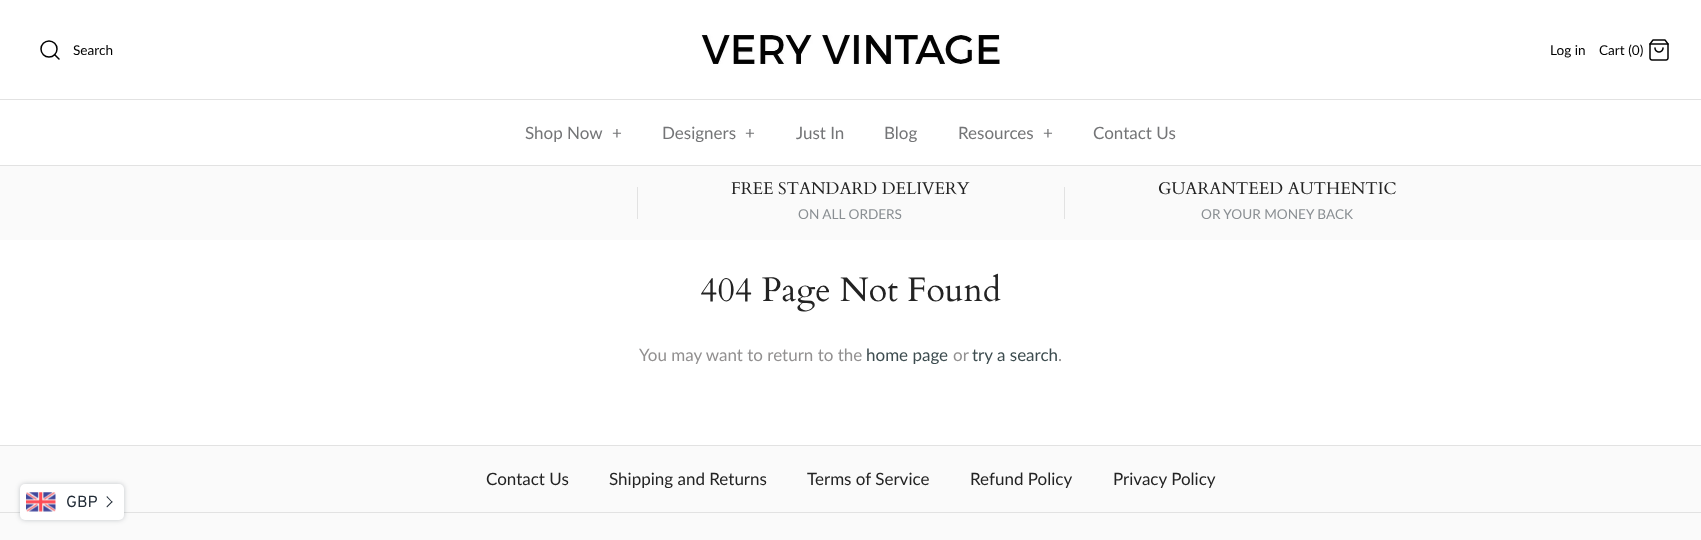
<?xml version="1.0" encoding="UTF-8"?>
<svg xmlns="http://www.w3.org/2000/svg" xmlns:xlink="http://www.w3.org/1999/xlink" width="1701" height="540">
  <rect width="100%" height="100%" fill="#ffffff" />
  <image x="701" y="34" width="299" height="30" xlink:href="image1.png" />
  <circle cx="49" cy="49" r="8" fill="none" stroke="#000000" stroke-width="1.5" />
  <path d="M 59 59 l -4.5 -4.5" fill="none" stroke="#000000" stroke-width="1.5" stroke-linecap="round" stroke-linejoin="round" />
  <image x="1649" y="39" width="20" height="22" xlink:href="image2.png" />
  <rect y="165" width="1701" height="1" fill="#e2e2e2" />
  <rect y="99" width="1701" height="1" fill="#e2e2e2" />
  <rect y="166" width="1701" height="74" fill="#fafafa" />
  <rect x="637" y="187" width="1" height="32" fill="#e2e2e2" />
  <rect x="1064" y="187" width="1" height="32" fill="#e2e2e2" />
  <rect y="446" width="1701" height="94" fill="#fafafa" />
  <rect y="445" width="1701" height="1" fill="#e2e2e2" />
  <rect y="512" width="1701" height="1" fill="#e2e2e2" />
  <rect x="20" y="484" width="104" height="36" rx="5" fill="#212b36" fill-opacity="0.25" filter="blur(2.5px)" />
  <rect x="20" y="484" width="104" height="36" rx="5" fill="#ffffff" />
  <image x="26" y="492" width="30" height="20" xlink:href="image3.png" />
  <path d="M 106.5 497 l 0.5 -1 l 5.5 6 l -0.5 0.5 z" fill="#212b36" />
  <path d="M 106.5 506.5 l 5.5 -5.5 l 0.5 1 l -5.5 5.5 z" fill="#212b36" />
  <text x="73" y="55" style="font-family: Lato; font-size: 13.6px; fill: #000000">Search</text>
  <text x="1550" y="55" style="font-family: Lato; font-size: 13.6px; fill: #000000">Log in</text>
  <text x="1599" y="55" style="font-family: Lato; font-size: 13.6px; fill: #000000">Cart (0)</text>
  <text x="525" y="139" style="font-family: Lato; font-size: 17px; fill: #747577">Shop Now</text>
  <text x="612" y="139" style="font-family: Lato; font-size: 17px; fill: #747577">+</text>
  <text x="662" y="139" style="font-family: Lato; font-size: 17px; fill: #747577">Designers</text>
  <text x="745" y="139" style="font-family: Lato; font-size: 17px; fill: #747577">+</text>
  <text x="796" y="139" style="font-family: Lato; font-size: 17px; fill: #747577">Just In</text>
  <text x="884" y="139" style="font-family: Lato; font-size: 17px; fill: #747577">Blog</text>
  <text x="958" y="139" style="font-family: Lato; font-size: 17px; fill: #747577">Resources</text>
  <text x="1043" y="139" style="font-family: Lato; font-size: 17px; fill: #747577">+</text>
  <text x="1093" y="139" style="font-family: Lato; font-size: 17px; fill: #747577">Contact Us</text>
  <text x="731" y="194" style="font-family: Cardo; font-size: 17px; fill: #232323">FREE STANDARD DELIVERY</text>
  <text x="798" y="219" style="font-family: Lato; font-size: 13.6px; fill: #8a8f93">ON ALL ORDERS</text>
  <text x="1158" y="194" style="font-family: Cardo; font-size: 17px; fill: #232323">GUARANTEED AUTHENTIC</text>
  <text x="1201" y="219" style="font-family: Lato; font-size: 13.6px; fill: #8a8f93">OR YOUR MONEY BACK</text>
  <text x="700" y="301" style="font-family: Cardo; font-size: 34px; fill: #232323">404 Page Not Found</text>
  <text x="639" y="361" style="font-family: Lato; font-size: 17px; fill: #929090">You may want to return to the</text>
  <text x="866" y="361" style="font-family: Lato; font-size: 17px; fill: #3d4c4f">home page</text>
  <text x="953" y="361" style="font-family: Lato; font-size: 17px; fill: #929090">or</text>
  <text x="972" y="361" style="font-family: Lato; font-size: 17px; fill: #3d4c4f">try a search</text>
  <text x="1058" y="361" style="font-family: Lato; font-size: 17px; fill: #929090">.</text>
  <text x="486" y="485" style="font-family: Lato; font-size: 17px; fill: #232323">Contact Us</text>
  <text x="609" y="485" style="font-family: Lato; font-size: 17px; fill: #232323">Shipping and Returns</text>
  <text x="807" y="485" style="font-family: Lato; font-size: 17px; fill: #232323">Terms of Service</text>
  <text x="970" y="485" style="font-family: Lato; font-size: 17px; fill: #232323">Refund Policy</text>
  <text x="1113" y="485" style="font-family: Lato; font-size: 17px; fill: #232323">Privacy Policy</text>
  <text x="66" y="507" style="font-family: Overpass; font-size: 16px; fill: #212b36">GBP</text>
</svg>
